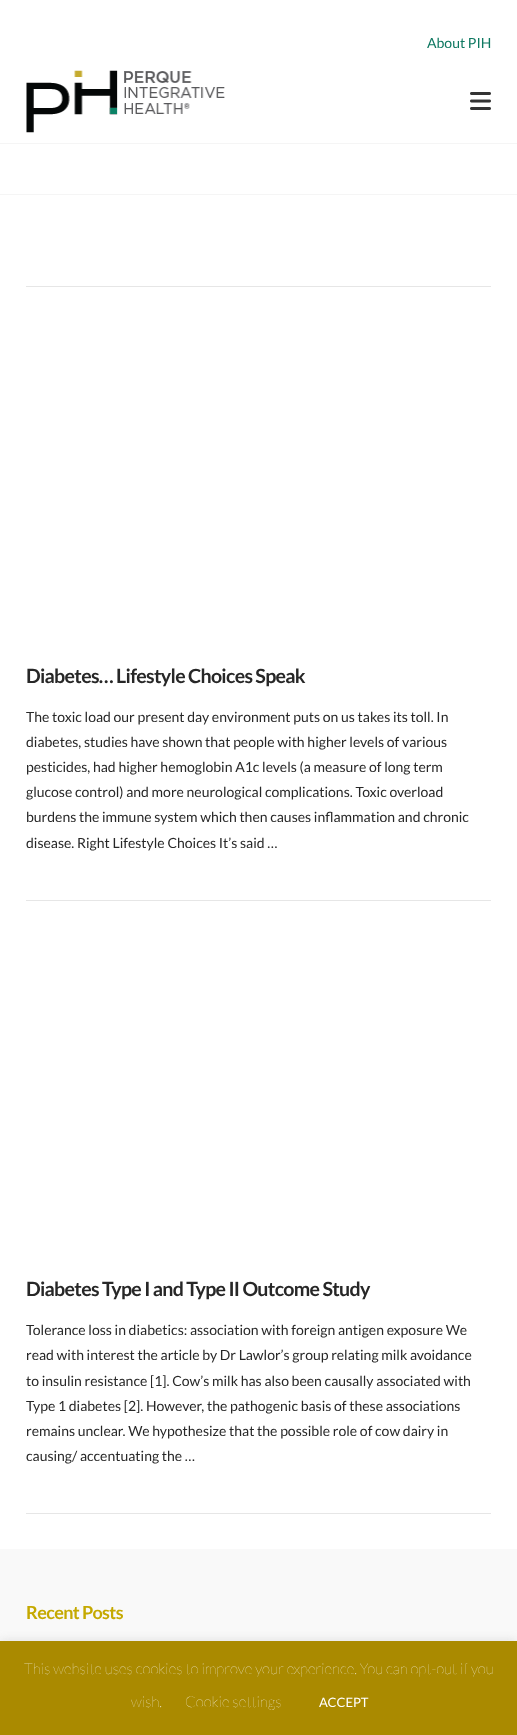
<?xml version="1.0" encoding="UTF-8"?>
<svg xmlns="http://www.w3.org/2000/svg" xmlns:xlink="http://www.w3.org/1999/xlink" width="517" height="1735">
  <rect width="100%" height="100%" fill="#ffffff" />
  <rect y="194" width="517" height="1" fill="#f5f5f5" />
  <rect y="143" width="517" height="1" fill="#f5f5f5" />
  <image x="26" y="70" width="199" height="63" xlink:href="image1.png" />
  <image x="470" y="92" width="21" height="18" xlink:href="image2.png" />
  <rect x="26" y="286" width="465" height="1" fill="#e6e6e6" />
  <rect x="26" y="900" width="465" height="1" fill="#e6e6e6" />
  <rect x="26" y="1513" width="465" height="1" fill="#e6e6e6" />
  <rect y="1549" width="517" height="92" fill="#f9f9f9" />
  <rect y="1640" width="517" height="94" fill="#acabab" fill-opacity="0.3" filter="blur(5px)" />
  <rect y="1641" width="517" height="94" fill="#aa8a00" />
  <text x="427" y="48" style="font-family: Lato; font-size: 14px; fill: #0e7861">About PIH</text>
  <text x="26" y="683" style="font-family: Lato; font-size: 19.6px; font-weight: bold; letter-spacing: -0.7px; fill: #272727">Diabetes… Lifestyle Choices Speak</text>
  <text x="26" y="722" style="font-family: Lato; font-size: 14px; fill: #272727">The toxic load our present day environment puts on us takes its toll. In</text>
  <text x="26" y="747" style="font-family: Lato; font-size: 14px; fill: #272727">diabetes, studies have shown that people with higher levels of various</text>
  <text x="26" y="772" style="font-family: Lato; font-size: 14px; fill: #272727">pesticides, had higher hemoglobin A1c levels (a measure of long term</text>
  <text x="26" y="797" style="font-family: Lato; font-size: 14px; fill: #272727">glucose control) and more neurological complications. Toxic overload</text>
  <text x="26" y="822" style="font-family: Lato; font-size: 14px; fill: #272727">burdens the immune system which then causes inflammation and chronic</text>
  <text x="26" y="848" style="font-family: Lato; font-size: 14px; fill: #272727">disease. Right Lifestyle Choices It’s said …</text>
  <text x="26" y="1296" style="font-family: Lato; font-size: 19.6px; font-weight: bold; letter-spacing: -0.7px; fill: #272727">Diabetes Type I and Type II Outcome Study</text>
  <text x="26" y="1335" style="font-family: Lato; font-size: 14px; fill: #272727">Tolerance loss in diabetics: association with foreign antigen exposure We</text>
  <text x="26" y="1360" style="font-family: Lato; font-size: 14px; fill: #272727">read with interest the article by Dr Lawlor’s group relating milk avoidance</text>
  <text x="26" y="1386" style="font-family: Lato; font-size: 14px; fill: #272727">to insulin resistance [1]. Cow’s milk has also been causally associated with</text>
  <text x="26" y="1411" style="font-family: Lato; font-size: 14px; fill: #272727">Type 1 diabetes [2]. However, the pathogenic basis of these associations</text>
  <text x="26" y="1436" style="font-family: Lato; font-size: 14px; fill: #272727">remains unclear. We hypothesize that the possible role of cow dairy in</text>
  <text x="26" y="1461" style="font-family: Lato; font-size: 14px; fill: #272727">causing/ accentuating the …</text>
  <text x="26" y="1619" style="font-family: Lato; font-size: 18px; font-weight: bold; letter-spacing: -0.6px; fill: #c5a901">Recent Posts</text>
  <text x="24" y="1674" style="font-family: Lato; font-size: 15px; font-weight: 100; fill: #ffffff">This website uses cookies to improve your experience. You can opt-out if you</text>
  <text x="131" y="1707" style="font-family: Lato; font-size: 15px; font-weight: 100; fill: #ffffff">wish.</text>
  <text x="185" y="1707" style="font-family: Lato; font-size: 15px; font-weight: 100; fill: #ffffff">Cookie settings</text>
  <text x="319" y="1707" style="font-family: Lato; font-size: 13px; fill: #ffffff">ACCEPT</text>
</svg>
